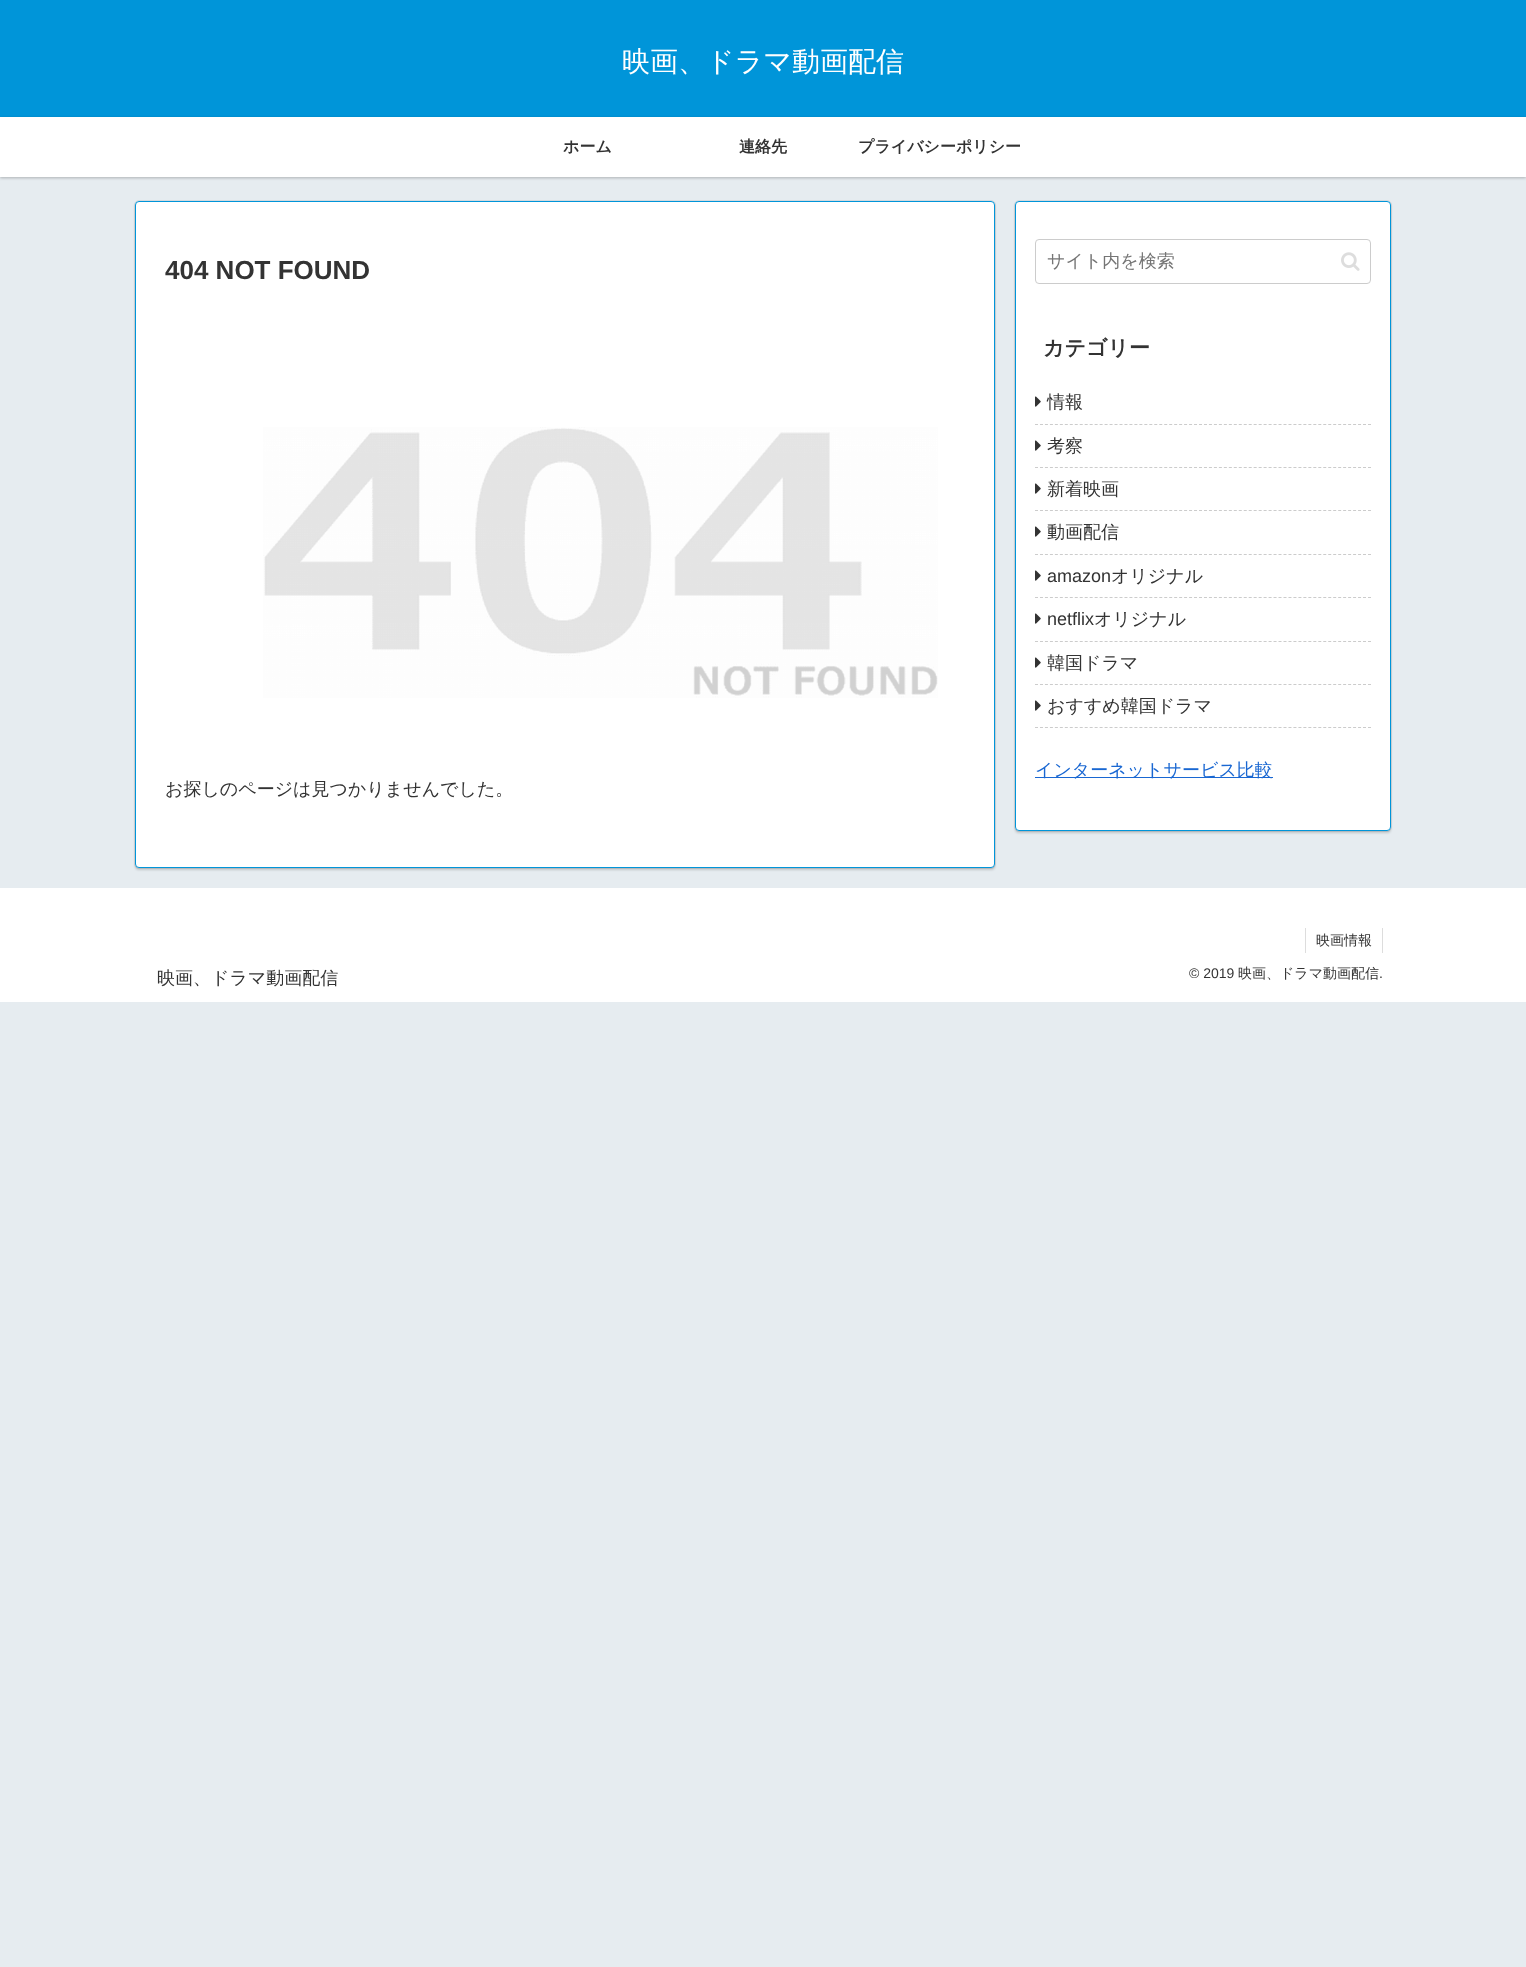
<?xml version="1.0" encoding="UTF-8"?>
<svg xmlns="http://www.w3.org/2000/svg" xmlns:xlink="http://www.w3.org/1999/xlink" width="1526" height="1967">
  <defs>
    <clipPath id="clip1"><path d="M 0 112 h 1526 v 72 h -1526 z m 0 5 h 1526 v 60 h -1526 z" clip-rule="evenodd" /></clipPath>
  </defs>
  <rect width="100%" height="100%" fill="#e6ecf0" />
  <rect y="117" width="1526" height="60" fill="#ffffff" />
  <rect width="1526" height="117" fill="#0095d9" />
  <g clip-path="url(#clip1)">
    <rect y="118" width="1526" height="60" fill="#000000" fill-opacity="0.25" filter="blur(1.5px)" />
  </g>
  <rect x="134.5" y="200.5" width="861" height="668" rx="4.5" fill="none" stroke="#d4d9dd" />
  <rect x="135" y="203" width="860" height="667" rx="4" fill="#000000" fill-opacity="0.16" filter="blur(1px)" />
  <rect x="135.5" y="201.5" width="859" height="666" rx="3.5" fill="#ffffff" stroke="#0095d9" />
  <image x="263" y="427" width="675" height="271" xlink:href="image1.png" />
  <rect x="1014.5" y="200.5" width="377" height="631" rx="4.5" fill="none" stroke="#d4d9dd" />
  <rect x="1015" y="203" width="376" height="630" rx="4" fill="#000000" fill-opacity="0.16" filter="blur(1px)" />
  <rect x="1015.5" y="201.5" width="375" height="629" rx="3.5" fill="#ffffff" stroke="#0095d9" />
  <rect x="1035.5" y="239.5" width="335" height="44" rx="3.5" fill="none" stroke="#cccccc" />
  <image x="1341" y="252" width="19" height="19" xlink:href="image2.png" />
  <path d="M 1035 424.5 h 336" fill="none" stroke="#cccccc" stroke-dasharray="3 1.97" />
  <image x="1035" y="396" width="6" height="11" xlink:href="image3.png" />
  <path d="M 1035 467.5 h 336" fill="none" stroke="#cccccc" stroke-dasharray="3 1.97" />
  <image x="1035" y="440" width="6" height="11" xlink:href="image3.png" />
  <path d="M 1035 510.5 h 336" fill="none" stroke="#cccccc" stroke-dasharray="3 1.97" />
  <image x="1035" y="483" width="6" height="11" xlink:href="image3.png" />
  <path d="M 1035 554.5 h 336" fill="none" stroke="#cccccc" stroke-dasharray="3 1.97" />
  <image x="1035" y="526" width="6" height="11" xlink:href="image3.png" />
  <path d="M 1035 597.5 h 336" fill="none" stroke="#cccccc" stroke-dasharray="3 1.97" />
  <image x="1035" y="570" width="6" height="11" xlink:href="image3.png" />
  <path d="M 1035 641.5 h 336" fill="none" stroke="#cccccc" stroke-dasharray="3 1.97" />
  <image x="1035" y="613" width="6" height="11" xlink:href="image3.png" />
  <path d="M 1035 684.5 h 336" fill="none" stroke="#cccccc" stroke-dasharray="3 1.97" />
  <image x="1035" y="657" width="6" height="11" xlink:href="image3.png" />
  <path d="M 1035 727.5 h 336" fill="none" stroke="#cccccc" stroke-dasharray="3 1.97" />
  <image x="1035" y="700" width="6" height="11" xlink:href="image3.png" />
  <rect x="1035" y="777" width="238" height="1" fill="#1967d2" />
  <rect y="888" width="1526" height="114" fill="#ffffff" />
  <rect x="1382" y="928" width="1" height="25" fill="#dddddd" />
  <rect x="1305" y="928" width="1" height="25" fill="#dddddd" />
  <text x="622" y="71" style="font-family: WenQuanYi Zen Hei; font-size: 28px; font-weight: 500; fill: #ffffff">映画、ドラマ動画配信</text>
  <text x="563" y="152" style="font-family: WenQuanYi Zen Hei; font-size: 16px; font-weight: bold; fill: #333333">ホーム</text>
  <text x="739" y="152" style="font-family: WenQuanYi Zen Hei; font-size: 16px; font-weight: bold; fill: #333333">連絡先</text>
  <text x="858" y="152" style="font-family: WenQuanYi Zen Hei; font-size: 16px; font-weight: bold; fill: #333333">プライバシーポリシー</text>
  <text x="165" y="279" style="font-family: Liberation Sans; font-size: 26px; font-weight: bold; fill: #333333">404 NOT FOUND</text>
  <text x="165" y="795" style="font-family: WenQuanYi Zen Hei; font-size: 18px; font-weight: 500; fill: #333333">お探しのページは見つかりませんでした。</text>
  <text x="1047" y="267" style="font-family: WenQuanYi Zen Hei; font-size: 18px; font-weight: 500; fill: #757575">サイト内を検索</text>
  <text x="1043" y="355" style="font-family: WenQuanYi Zen Hei; font-size: 21px; font-weight: bold; fill: #333333">カテゴリー</text>
  <text x="1047" y="408" style="font-family: WenQuanYi Zen Hei; font-size: 18px; font-weight: 500; fill: #333333">情報</text>
  <text x="1047" y="452" style="font-family: WenQuanYi Zen Hei; font-size: 18px; font-weight: 500; fill: #333333">考察</text>
  <text x="1047" y="495" style="font-family: WenQuanYi Zen Hei; font-size: 18px; font-weight: 500; fill: #333333">新着映画</text>
  <text x="1047" y="538" style="font-family: WenQuanYi Zen Hei; font-size: 18px; font-weight: 500; fill: #333333">動画配信</text>
  <text x="1047" y="582" style="font-family: Liberation Sans; font-size: 18px; fill: #333333">amazon</text>
  <text x="1111" y="582" style="font-family: WenQuanYi Zen Hei; font-size: 18px; font-weight: 500; fill: #333333">オリジナル</text>
  <text x="1047" y="625" style="font-family: Liberation Sans; font-size: 18px; fill: #333333">netflix</text>
  <text x="1094" y="625" style="font-family: WenQuanYi Zen Hei; font-size: 18px; font-weight: 500; fill: #333333">オリジナル</text>
  <text x="1047" y="669" style="font-family: WenQuanYi Zen Hei; font-size: 18px; font-weight: 500; fill: #333333">韓国ドラマ</text>
  <text x="1047" y="712" style="font-family: WenQuanYi Zen Hei; font-size: 18px; font-weight: 500; fill: #333333">おすすめ韓国ドラマ</text>
  <text x="1035" y="776" style="font-family: WenQuanYi Zen Hei; font-size: 18px; font-weight: 500; fill: #1967d2">インターネットサービス比較</text>
  <text x="157" y="984" style="font-family: WenQuanYi Zen Hei; font-size: 18px; font-weight: 500; fill: #333333">映画、ドラマ動画配信</text>
  <text x="1316" y="945" style="font-family: WenQuanYi Zen Hei; font-size: 14px; font-weight: 500; fill: #333333">映画情報</text>
  <text x="1189" y="978" style="font-family: Liberation Sans; font-size: 14px; fill: #333333">© 2019</text>
  <text x="1238" y="978" style="font-family: WenQuanYi Zen Hei; font-size: 14px; font-weight: 500; fill: #333333">映画、ドラマ動画配信</text>
  <text x="1379" y="978" style="font-family: Liberation Sans; font-size: 14px; fill: #333333">.</text>
</svg>
